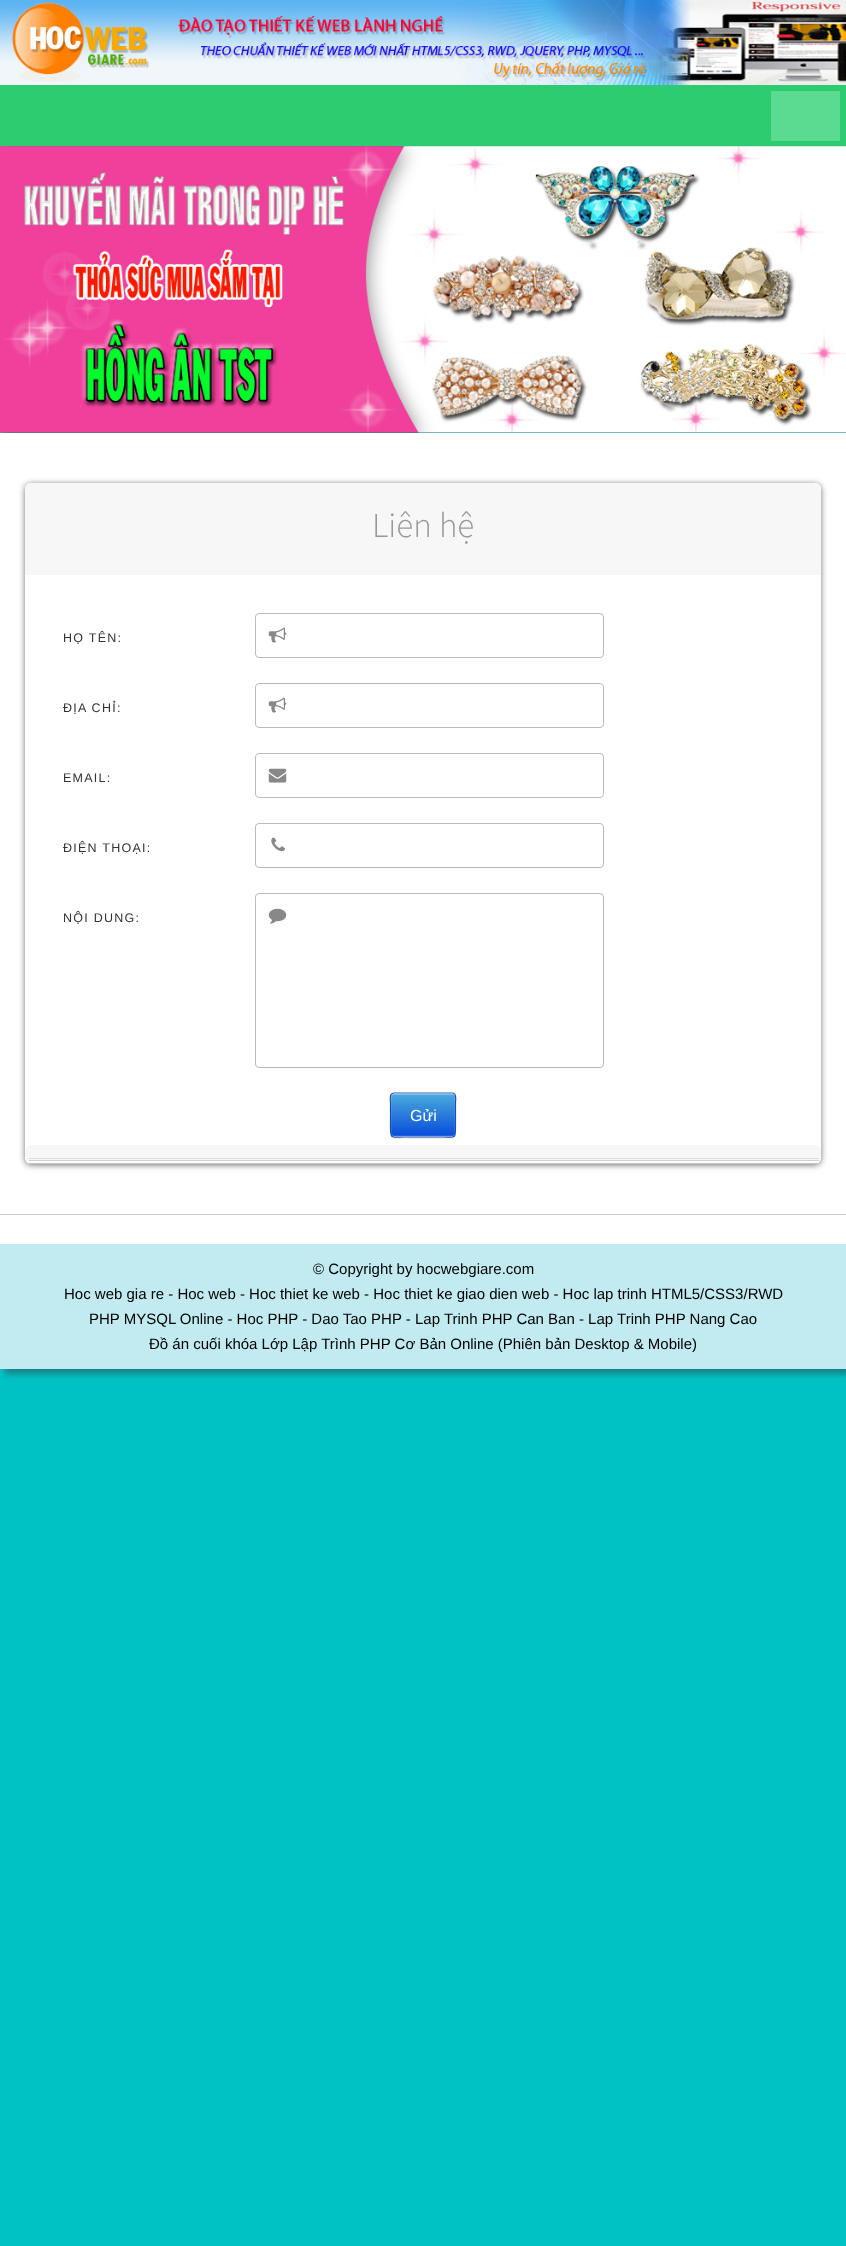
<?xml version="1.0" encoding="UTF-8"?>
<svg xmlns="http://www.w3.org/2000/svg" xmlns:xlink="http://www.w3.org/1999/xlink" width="846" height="2246">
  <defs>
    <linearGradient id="g1" gradientUnits="userSpaceOnUse" x1="423" y1="1094" x2="423" y2="1136"><stop offset="0" stop-color="#4baadc" /><stop offset="1" stop-color="#074dda" /></linearGradient>
  </defs>
  <rect width="100%" height="100%" fill="#00c2c5" />
  <rect x="5" y="5" width="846" height="1369" fill="#323232" fill-opacity="0.45" filter="blur(3px)" />
  <image x="0" y="0" width="846" height="85" xlink:href="image1.png" />
  <rect y="85" width="846" height="61" fill="#2ecc71" />
  <rect x="771" y="91" width="69" height="50" fill="#59db91" />
  <image x="0" y="146" width="846" height="287" xlink:href="image2.png" />
  <image x="0" y="146" width="846" height="287" xlink:href="image3.png" />
  <rect y="433" width="846" height="781" fill="#ffffff" />
  <rect x="25" y="484" width="796" height="681" rx="6" fill="#000000" fill-opacity="0.55" filter="blur(3px)" />
  <rect x="25" y="483" width="796" height="681" rx="6" fill="#ffffff" />
  <rect x="29" y="1163" width="790" height="1" fill="#c4c4c4" />
  <path d="M 31 483 h 784 c 3.5 0 6 2.5 6 6 v 86 h -796 v -86 c 0 -3.5 2.5 -6 6 -6 z" fill="#f7f7f7" />
  <rect x="255.5" y="613.5" width="348" height="44" rx="3.5" fill="none" stroke="#bbbbbb" />
  <image x="268" y="627" width="19" height="16" xlink:href="image4.png" />
  <rect x="255.5" y="683.5" width="348" height="44" rx="3.5" fill="none" stroke="#bbbbbb" />
  <image x="268" y="697" width="19" height="16" xlink:href="image4.png" />
  <rect x="255.5" y="753.5" width="348" height="44" rx="3.5" fill="none" stroke="#bbbbbb" />
  <image x="268" y="768" width="19" height="15" xlink:href="image5.png" />
  <rect x="255.5" y="823.5" width="348" height="44" rx="3.5" fill="none" stroke="#bbbbbb" />
  <image x="271" y="837" width="14" height="15" xlink:href="image6.png" />
  <rect x="255.5" y="893.5" width="348" height="174" rx="3.5" fill="none" stroke="#bbbbbb" />
  <image x="268" y="908" width="19" height="16" xlink:href="image7.png" />
  <rect x="390" y="1094" width="66" height="45" rx="4" fill="#000000" fill-opacity="0.06" filter="blur(0.5px)" />
  <rect x="391" y="1094" width="64" height="42" rx="2.5" fill="url(#g1)" />
  <rect x="391.5" y="1094.5" width="63" height="41" rx="2" fill="none" stroke="#ffffff" stroke-opacity="0.1" />
  <path d="M 394 1095 h 58 c 2 0 3 1 3 3 c 0 -7 -7 -4 -12 -4 h -40 c -5 0 -12 -3 -12 4 c 0 -2 1 -3 3 -3 z" fill="#ffffff" fill-opacity="0.2" />
  <path d="M 391.5 1094 l 2 -1 h 59.5 l 1.5 1" fill="none" stroke="#1f58cc" stroke-width="1.2" />
  <path d="M 454.5 1094 c 2 2 1 7 1 8.5 v 25 c 0 11.5 0 9.5 -13 9.5 h -39 c -12.5 0 -13 2 -13 -9.5 v -25 c 0 -1.5 -1 -6.5 1 -8.5" fill="none" stroke="#1b4db3" stroke-width="1.2" />
  <rect x="25" y="1148" width="796" height="13" rx="6" fill="#f7f7f7" />
  <rect x="25" y="1145" width="796" height="14" rx="6" fill="#f7f7f7" />
  <rect x="29" y="1158" width="790" height="1" fill="#dcdcdc" />
  <rect x="29" y="1160" width="790" height="1" fill="#d2d2d2" />
  <rect y="1215" width="846" height="29" fill="#ffffff" />
  <rect y="1214" width="846" height="1" fill="#cfcbcb" />
  <rect y="1244" width="846" height="125" fill="#c1ebf0" />
  <text x="372" y="537" style="font-family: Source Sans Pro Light; font-size: 35px; font-weight: 300; fill: #999999">Liên hệ</text>
  <text x="63" y="642" style="font-family: Liberation Sans; font-size: 12.5px; letter-spacing: 1.25px; fill: #333333">HỌ TÊN:</text>
  <text x="63" y="712" style="font-family: Liberation Sans; font-size: 12.5px; letter-spacing: 1.25px; fill: #333333">ĐỊA CHỈ:</text>
  <text x="63" y="782" style="font-family: Liberation Sans; font-size: 12.5px; letter-spacing: 1.25px; fill: #333333">EMAIL:</text>
  <text x="63" y="852" style="font-family: Liberation Sans; font-size: 12.5px; letter-spacing: 1.25px; fill: #333333">ĐIỆN THOẠI:</text>
  <text x="63" y="922" style="font-family: Liberation Sans; font-size: 12.5px; letter-spacing: 1.25px; fill: #333333">NỘI DUNG:</text>
  <text x="410" y="1121" style="font-family: Liberation Sans; font-size: 16px; fill: #ffffff">Gửi</text>
  <text x="313" y="1274" style="font-family: Liberation Sans; font-size: 15px; fill: #000000">© Copyright by hocwebgiare.com</text>
  <text x="64" y="1299" style="font-family: Liberation Sans; font-size: 15px; fill: #000000">Hoc web gia re - Hoc web - Hoc thiet ke web - Hoc thiet ke giao dien web - Hoc lap trinh HTML5/CSS3/RWD</text>
  <text x="89" y="1324" style="font-family: Liberation Sans; font-size: 15px; fill: #000000">PHP MYSQL Online - Hoc PHP - Dao Tao PHP - Lap Trinh PHP Can Ban - Lap Trinh PHP Nang Cao</text>
  <text x="149" y="1349" style="font-family: Liberation Sans; font-size: 15px; fill: #000000">Đồ án cuối khóa Lớp Lập Trình PHP Cơ Bản Online (Phiên bản Desktop &amp; Mobile)</text>
</svg>
